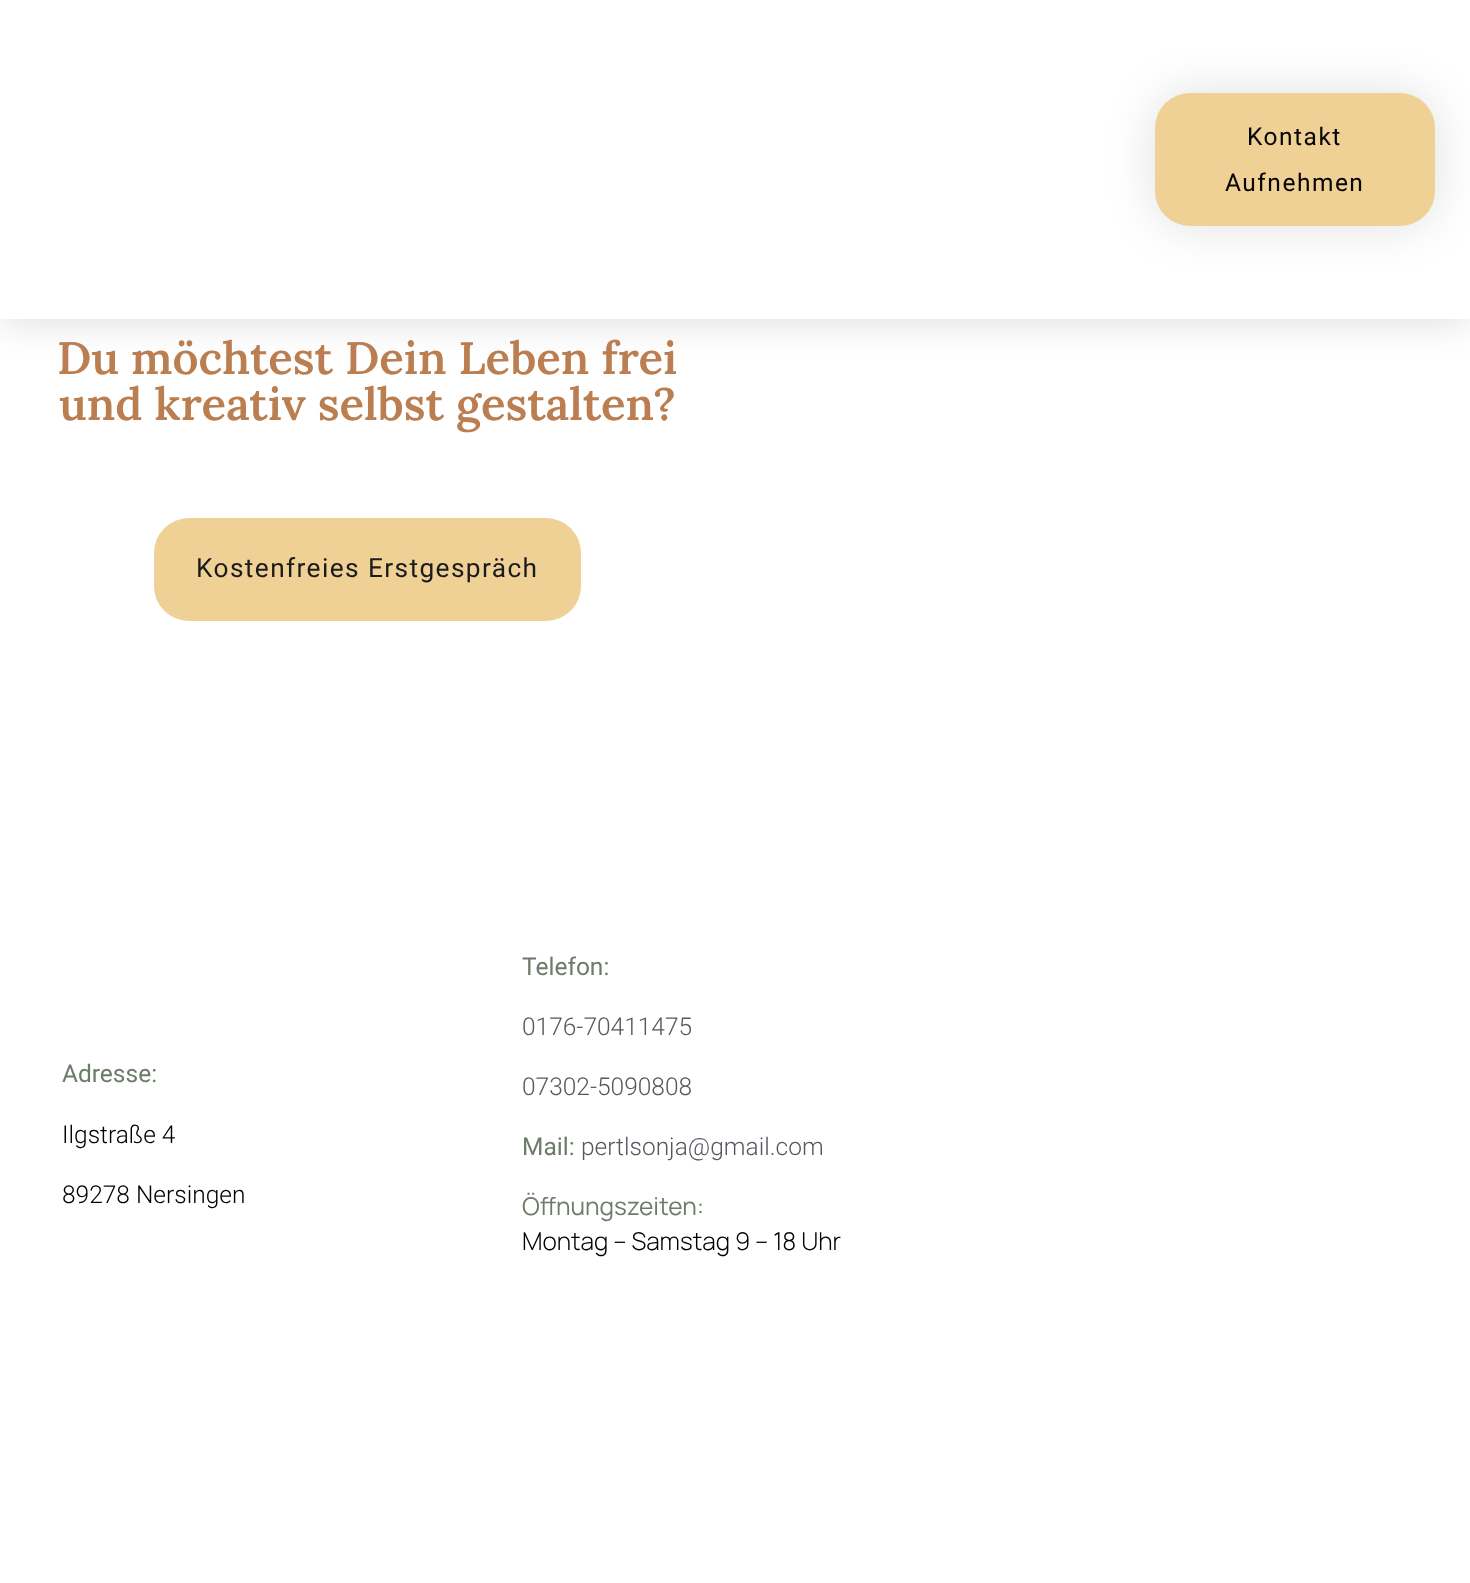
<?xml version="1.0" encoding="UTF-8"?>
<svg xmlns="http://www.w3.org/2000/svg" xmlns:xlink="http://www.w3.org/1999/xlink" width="1470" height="1583">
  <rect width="100%" height="100%" fill="#ffffff" />
  <rect width="1470" height="319" fill="#000000" fill-opacity="0.15" filter="blur(21px)" />
  <rect width="1470" height="319" fill="#ffffff" />
  <rect x="1155" y="93" width="280" height="133" rx="35" fill="#000000" fill-opacity="0.12" filter="blur(23.5px)" />
  <rect x="1155" y="93" width="280" height="133" rx="35" fill="#efd195" />
  <rect x="154" y="518" width="427" height="103" rx="35" fill="#efd195" />
  <text x="1247" y="145" style="font-family: Roboto; font-size: 24.5px; letter-spacing: 1.5px; fill: #060606">Kontakt</text>
  <text x="1225" y="191" style="font-family: Roboto; font-size: 24.5px; letter-spacing: 1.5px; fill: #060606">Aufnehmen</text>
  <text x="57" y="374" style="font-family: Lora; font-size: 45.5px; font-weight: 600; fill: #ba7e51">Du möchtest Dein Leben frei</text>
  <text x="59" y="420" style="font-family: Lora; font-size: 45.5px; font-weight: 600; fill: #ba7e51">und kreativ selbst gestalten?</text>
  <text x="196" y="577" style="font-family: Roboto; font-size: 26.25px; letter-spacing: 1.4px; fill: #1b1b1b">Kostenfreies Erstgespräch</text>
  <text x="62" y="1082" style="font-family: Roboto; font-size: 24.5px; fill: #6c7c69">Adresse:</text>
  <text x="62" y="1143" style="font-family: Roboto; font-size: 24.5px; font-weight: 300; fill: #000000">Ilgstraße 4</text>
  <text x="62" y="1203" style="font-family: Roboto; font-size: 24.5px; font-weight: 300; fill: #000000">89278 Nersingen</text>
  <text x="522" y="975" style="font-family: Roboto; font-size: 24.5px; fill: #6c7c69">Telefon:</text>
  <text x="522" y="1035" style="font-family: Roboto; font-size: 24.5px; font-weight: 300; fill: #54595f">0176-70411475</text>
  <text x="522" y="1095" style="font-family: Roboto; font-size: 24.5px; font-weight: 300; fill: #54595f">07302-5090808</text>
  <text x="522" y="1155" style="font-family: Roboto; font-size: 24.5px; fill: #6c7c69">Mail:</text>
  <text x="581" y="1155" style="font-family: Roboto; font-size: 24.5px; font-weight: 300; fill: #54595f">pertlsonja@gmail.com</text>
  <text x="522" y="1215" style="font-family: Manrope; font-size: 24.5px; fill: #6c7c69">Öffnungszeiten:</text>
  <text x="522" y="1250" style="font-family: Manrope; font-size: 24.5px; font-weight: 300; fill: #000000">Montag – Samstag 9 – 18 Uhr</text>
</svg>
